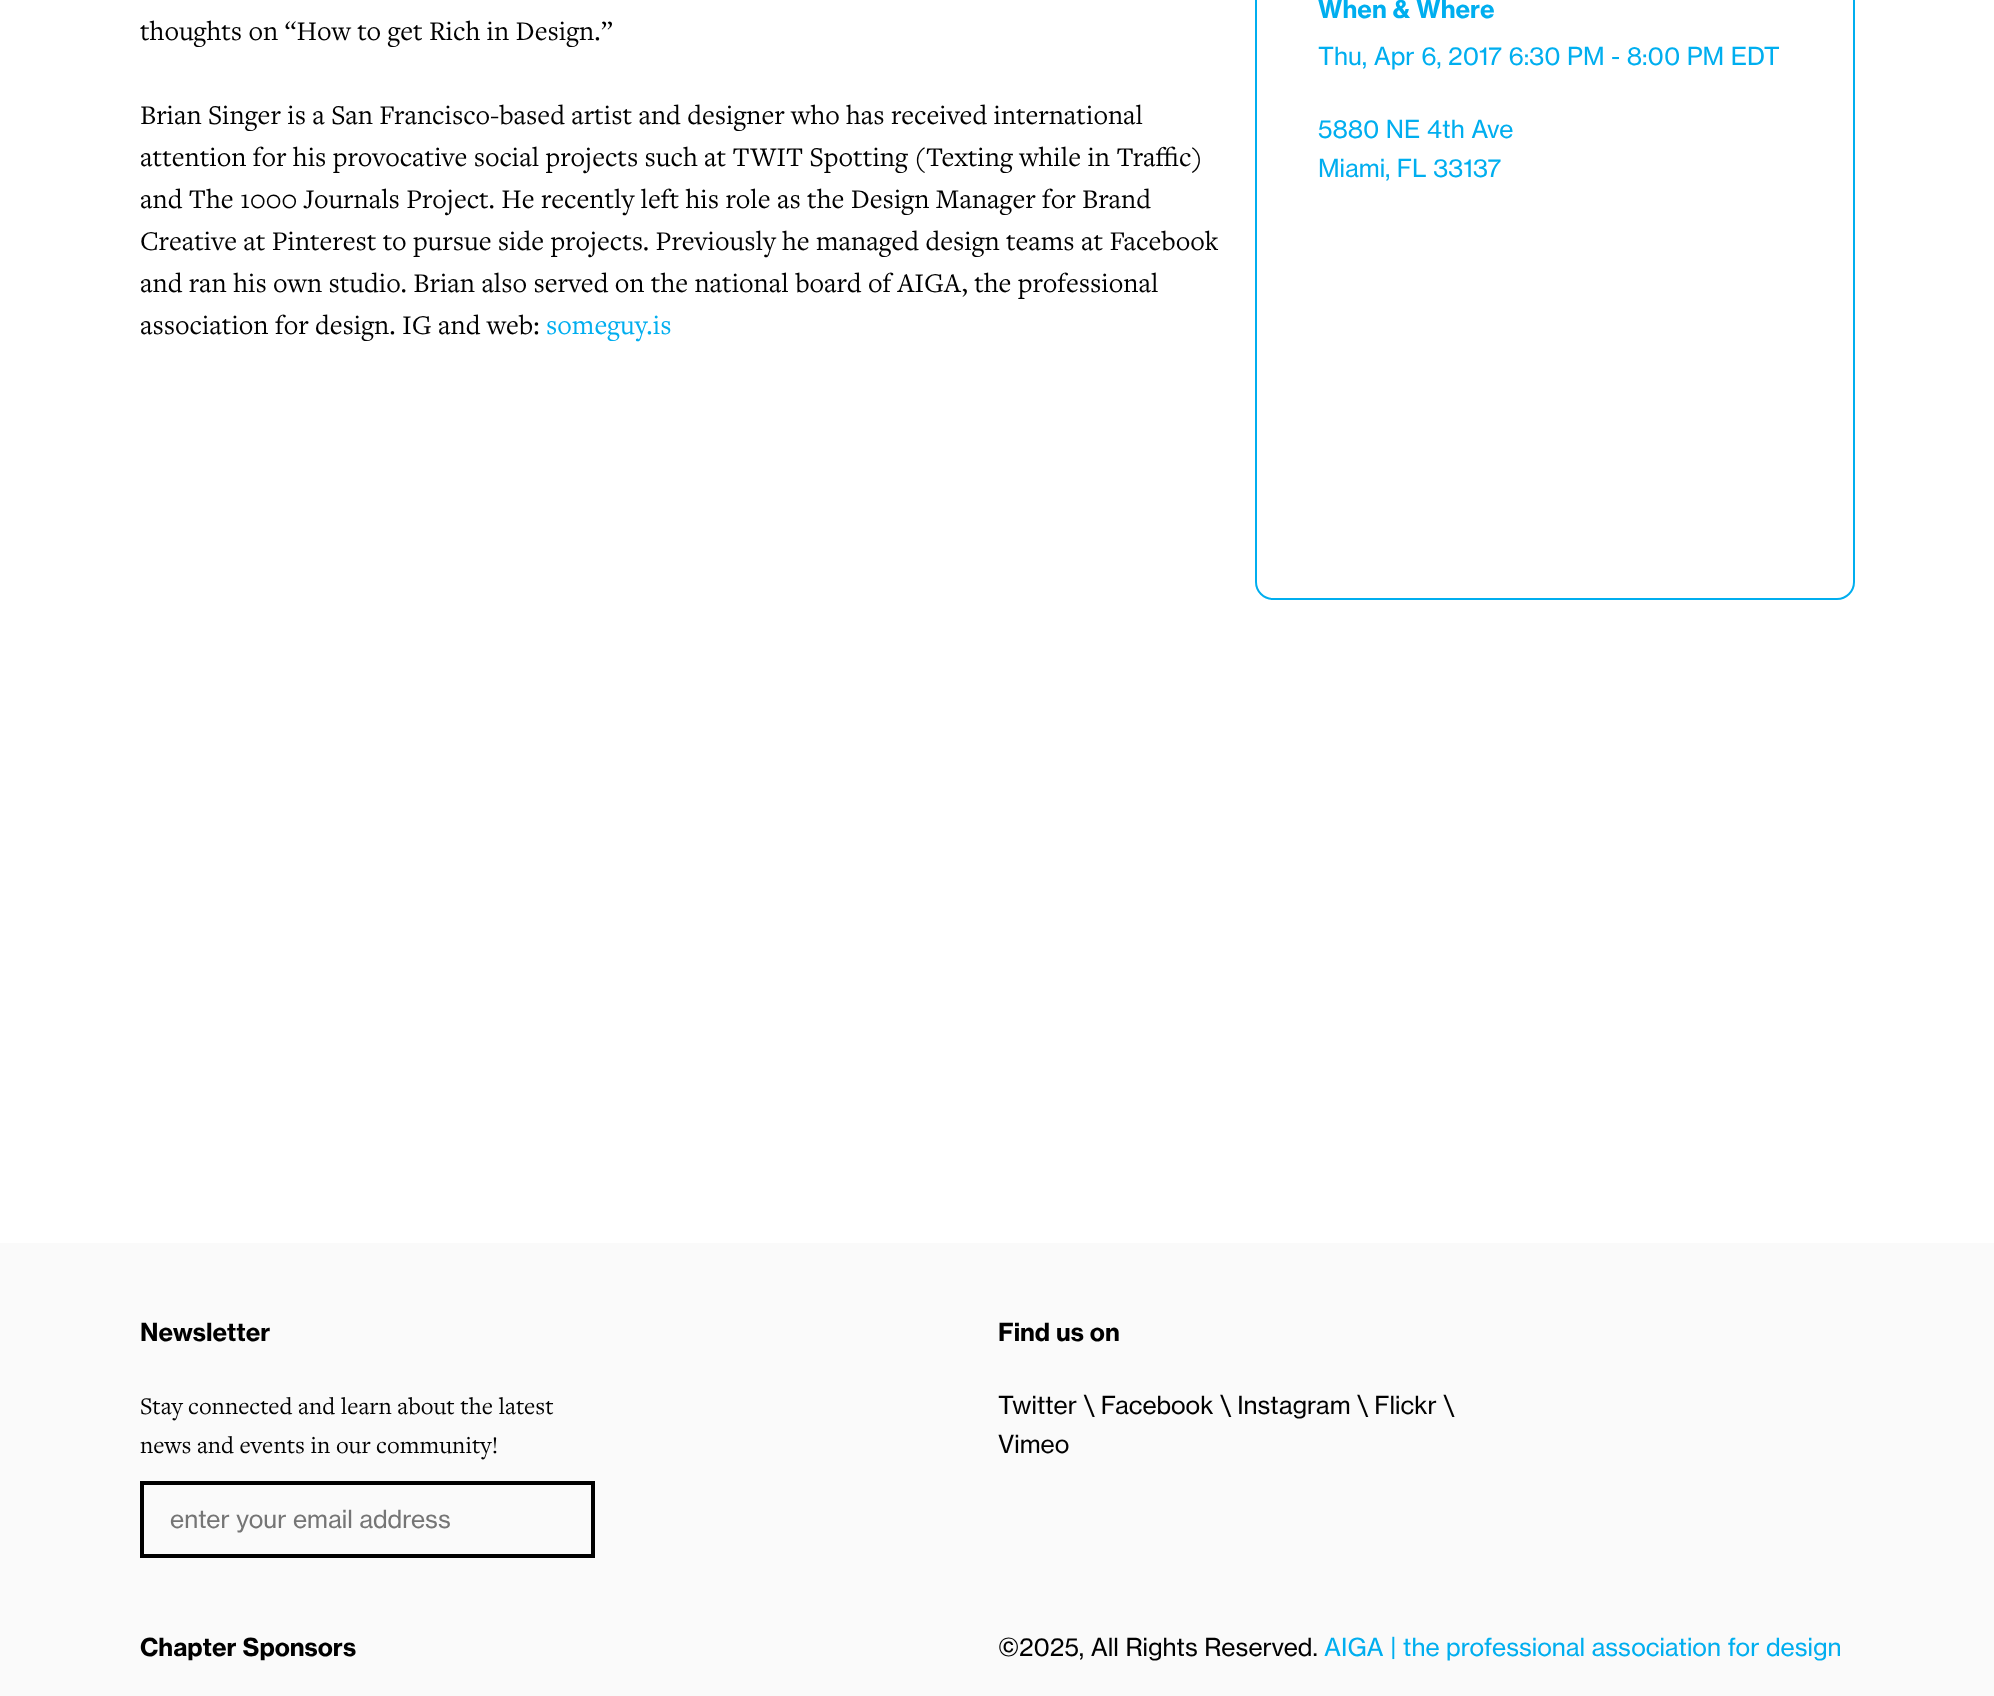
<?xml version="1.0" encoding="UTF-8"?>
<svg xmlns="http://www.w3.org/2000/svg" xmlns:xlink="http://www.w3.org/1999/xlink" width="1994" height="1696">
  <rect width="100%" height="100%" fill="#ffffff" />
  <rect x="1256" y="-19" width="598" height="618" rx="17" fill="none" stroke="#00aeef" stroke-width="2" />
  <rect y="1243" width="1994" height="453" fill="#fafafa" />
  <rect x="142" y="1483" width="451" height="73" fill="none" stroke="#000000" stroke-width="4" />
  <text x="140" y="40" style="font-family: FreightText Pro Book; font-size: 28px; fill: #000000">thoughts on “How to get Rich in Design.”</text>
  <text x="140" y="124" style="font-family: FreightText Pro Book; font-size: 28px; fill: #000000">Brian Singer is a San Francisco-based artist and designer who has received international</text>
  <text x="140" y="166" style="font-family: FreightText Pro Book; font-size: 28px; fill: #000000">attention for his provocative social projects such at TWIT Spotting (Texting while in Traffic)</text>
  <text x="140" y="208" style="font-family: FreightText Pro Book; font-size: 28px; fill: #000000">and The 1000 Journals Project. He recently left his role as the Design Manager for Brand</text>
  <text x="140" y="250" style="font-family: FreightText Pro Book; font-size: 28px; fill: #000000">Creative at Pinterest to pursue side projects. Previously he managed design teams at Facebook</text>
  <text x="140" y="292" style="font-family: FreightText Pro Book; font-size: 28px; fill: #000000">and ran his own studio. Brian also served on the national board of AIGA, the professional</text>
  <text x="140" y="334" style="font-family: FreightText Pro Book; font-size: 28px; fill: #000000">association for design. IG and web:</text>
  <text x="546" y="334" style="font-family: FreightText Pro Book; font-size: 28px; fill: #00aeef">someguy.is</text>
  <text x="1318" y="18" style="font-family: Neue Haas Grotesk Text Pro; font-size: 24.5px; font-weight: bold; fill: #00aeef">When &amp; Where</text>
  <text x="1318" y="65" style="font-family: Neue Haas Grotesk Text Pro; font-size: 24.5px; fill: #00aeef">Thu, Apr 6, 2017 6:30 PM - 8:00 PM EDT</text>
  <text x="1318" y="138" style="font-family: Neue Haas Grotesk Text Pro; font-size: 24.5px; fill: #00aeef">5880 NE 4th Ave</text>
  <text x="1318" y="177" style="font-family: Neue Haas Grotesk Text Pro; font-size: 24.5px; fill: #00aeef">Miami, FL 33137</text>
  <text x="140" y="1341" style="font-family: Neue Haas Grotesk Text Pro; font-size: 24.5px; font-weight: bold; fill: #000000">Newsletter</text>
  <text x="140" y="1414" style="font-family: FreightText Pro Book; font-size: 24.5px; fill: #000000">Stay connected and learn about the latest</text>
  <text x="140" y="1453" style="font-family: FreightText Pro Book; font-size: 24.5px; fill: #000000">news and events in our community!</text>
  <text x="170" y="1528" style="font-family: Neue Haas Grotesk Text Pro; font-size: 24.5px; fill: #757575">enter your email address</text>
  <text x="998" y="1341" style="font-family: Neue Haas Grotesk Text Pro; font-size: 24.5px; font-weight: bold; fill: #000000">Find us on</text>
  <text x="998" y="1414" style="font-family: Neue Haas Grotesk Text Pro; font-size: 24.5px; fill: #000000">Twitter \ Facebook \ Instagram \ Flickr \</text>
  <text x="998" y="1453" style="font-family: Neue Haas Grotesk Text Pro; font-size: 24.5px; fill: #000000">Vimeo</text>
  <text x="140" y="1656" style="font-family: Neue Haas Grotesk Text Pro; font-size: 24.5px; font-weight: bold; fill: #000000">Chapter Sponsors</text>
  <text x="998" y="1656" style="font-family: Neue Haas Grotesk Text Pro; font-size: 24.5px; fill: #000000">©2025, All Rights Reserved.</text>
  <text x="1324" y="1656" style="font-family: Neue Haas Grotesk Text Pro; font-size: 24.5px; fill: #00aeef">AIGA | the professional association for design</text>
</svg>
